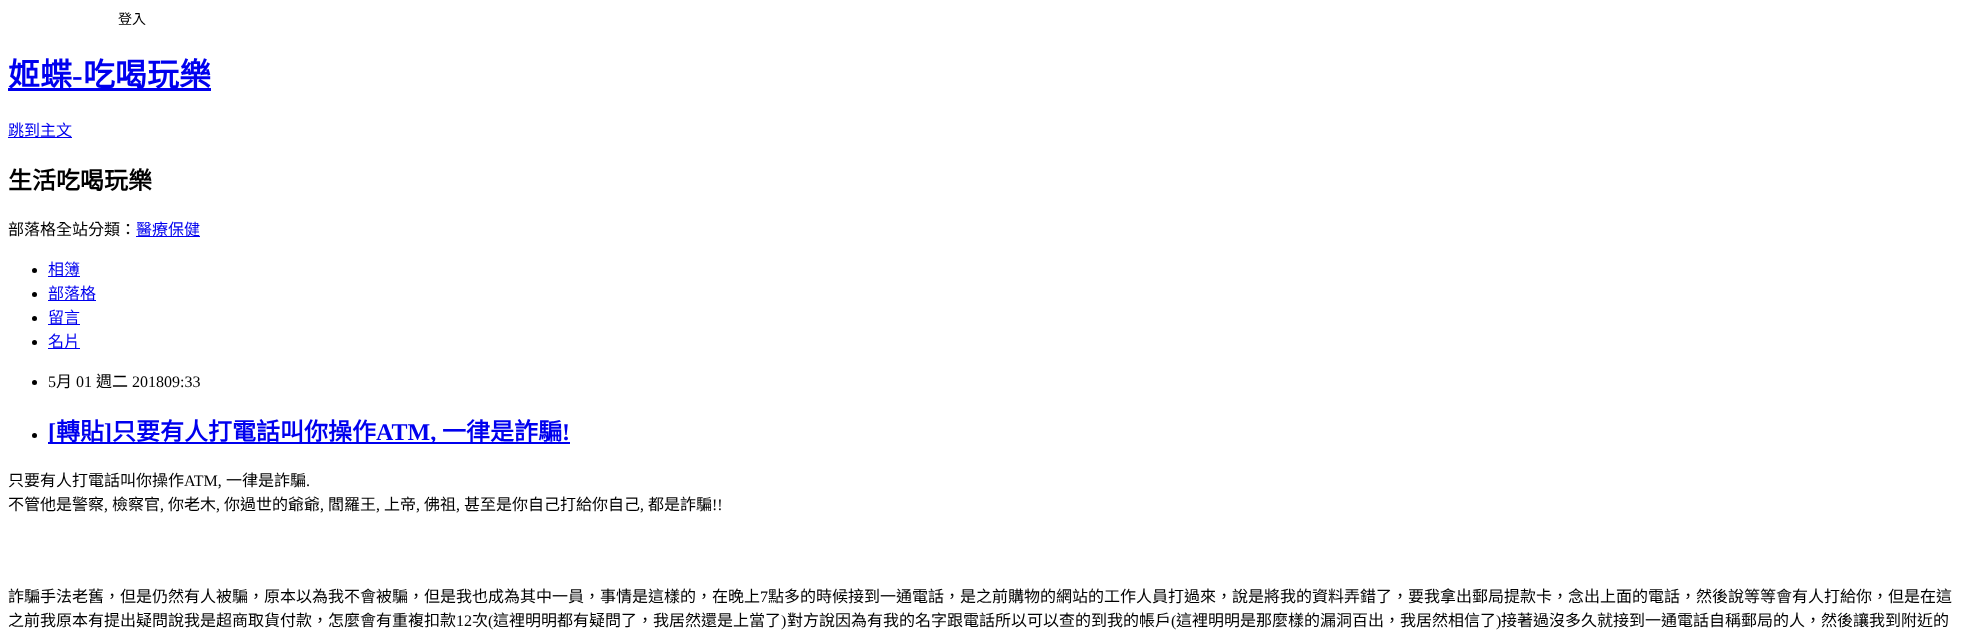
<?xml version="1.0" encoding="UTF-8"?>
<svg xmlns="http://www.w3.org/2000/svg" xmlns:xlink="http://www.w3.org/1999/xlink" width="1971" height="630">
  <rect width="100%" height="100%" fill="#ffffff" />
  <rect x="8" y="88" width="203" height="3" fill="#0000ee" />
  <rect x="8" y="137" width="64" height="1" fill="#0000ee" />
  <rect x="136" y="236" width="64" height="1" fill="#0000ee" />
  <circle cx="34.5" cy="270.5" r="2.5" fill="#000000" />
  <rect x="48" y="276" width="32" height="1" fill="#0000ee" />
  <circle cx="34.5" cy="294.5" r="2.5" fill="#000000" />
  <rect x="48" y="300" width="48" height="1" fill="#0000ee" />
  <circle cx="34.5" cy="318.5" r="2.5" fill="#000000" />
  <rect x="48" y="324" width="32" height="1" fill="#0000ee" />
  <circle cx="34.5" cy="342.5" r="2.5" fill="#000000" />
  <rect x="48" y="348" width="32" height="1" fill="#0000ee" />
  <circle cx="34.5" cy="382.5" r="2.5" fill="#000000" />
  <circle cx="34.5" cy="435.5" r="2.5" fill="#000000" />
  <rect x="48" y="442" width="522" height="2" fill="#0000ee" />
  <text x="118" y="24" style="font-family: Noto Sans CJK TC; font-size: 14px; fill: #000000">登入</text>
  <text x="8" y="86" style="font-family: Noto Sans CJK TC; font-size: 32px; font-weight: bold; fill: #0000ee">姬蝶</text>
  <text x="72" y="86" style="font-family: Liberation Serif; font-size: 32px; font-weight: bold; fill: #0000ee">-</text>
  <text x="83" y="86" style="font-family: Noto Sans CJK TC; font-size: 32px; font-weight: bold; fill: #0000ee">吃喝玩樂</text>
  <text x="8" y="136" style="font-family: Noto Sans CJK TC; font-size: 16px; fill: #0000ee">跳到主文</text>
  <text x="8" y="189" style="font-family: Noto Sans CJK TC; font-size: 24px; font-weight: bold; fill: #000000">生活吃喝玩樂</text>
  <text x="8" y="235" style="font-family: Noto Sans CJK TC; font-size: 16px; fill: #000000">部落格全站分類：</text>
  <text x="136" y="235" style="font-family: Noto Sans CJK TC; font-size: 16px; fill: #0000ee">醫療保健</text>
  <text x="48" y="275" style="font-family: Noto Sans CJK TC; font-size: 16px; fill: #0000ee">相簿</text>
  <text x="48" y="299" style="font-family: Noto Sans CJK TC; font-size: 16px; fill: #0000ee">部落格</text>
  <text x="48" y="323" style="font-family: Noto Sans CJK TC; font-size: 16px; fill: #0000ee">留言</text>
  <text x="48" y="347" style="font-family: Noto Sans CJK TC; font-size: 16px; fill: #0000ee">名片</text>
  <text x="48" y="387" style="font-family: Liberation Serif; font-size: 16px; fill: #000000">5</text>
  <text x="56" y="387" style="font-family: Noto Sans CJK TC; font-size: 16px; fill: #000000">月</text>
  <text x="76" y="387" style="font-family: Liberation Serif; font-size: 16px; fill: #000000">01</text>
  <text x="96" y="387" style="font-family: Noto Sans CJK TC; font-size: 16px; fill: #000000">週二</text>
  <text x="132" y="387" style="font-family: Liberation Serif; font-size: 16px; fill: #000000">201809:33</text>
  <text x="48" y="440" style="font-family: Liberation Serif; font-size: 24px; font-weight: bold; fill: #0000ee">[</text>
  <text x="56" y="440" style="font-family: Noto Sans CJK TC; font-size: 24px; font-weight: bold; fill: #0000ee">轉貼</text>
  <text x="104" y="440" style="font-family: Liberation Serif; font-size: 24px; font-weight: bold; fill: #0000ee">]</text>
  <text x="112" y="440" style="font-family: Noto Sans CJK TC; font-size: 24px; font-weight: bold; fill: #0000ee">只要有人打電話叫你操作</text>
  <text x="376" y="440" style="font-family: Liberation Serif; font-size: 24px; font-weight: bold; fill: #0000ee">ATM,</text>
  <text x="442" y="440" style="font-family: Noto Sans CJK TC; font-size: 24px; font-weight: bold; fill: #0000ee">一律是詐騙</text>
  <text x="562" y="440" style="font-family: Liberation Serif; font-size: 24px; font-weight: bold; fill: #0000ee">!</text>
  <text x="8" y="486" style="font-family: Noto Sans CJK TC; font-size: 16px; fill: #000000">只要有人打電話叫你操作</text>
  <text x="184" y="486" style="font-family: Liberation Serif; font-size: 16px; fill: #000000">ATM,</text>
  <text x="226" y="486" style="font-family: Noto Sans CJK TC; font-size: 16px; fill: #000000">一律是詐騙</text>
  <text x="306" y="486" style="font-family: Liberation Serif; font-size: 16px; fill: #000000">.</text>
  <text x="8" y="510" style="font-family: Noto Sans CJK TC; font-size: 16px; fill: #000000">不管他是警察</text>
  <text x="104" y="510" style="font-family: Liberation Serif; font-size: 16px; fill: #000000">,</text>
  <text x="112" y="510" style="font-family: Noto Sans CJK TC; font-size: 16px; fill: #000000">檢察官</text>
  <text x="160" y="510" style="font-family: Liberation Serif; font-size: 16px; fill: #000000">,</text>
  <text x="168" y="510" style="font-family: Noto Sans CJK TC; font-size: 16px; fill: #000000">你老木</text>
  <text x="216" y="510" style="font-family: Liberation Serif; font-size: 16px; fill: #000000">,</text>
  <text x="224" y="510" style="font-family: Noto Sans CJK TC; font-size: 16px; fill: #000000">你過世的爺爺</text>
  <text x="320" y="510" style="font-family: Liberation Serif; font-size: 16px; fill: #000000">,</text>
  <text x="328" y="510" style="font-family: Noto Sans CJK TC; font-size: 16px; fill: #000000">閻羅王</text>
  <text x="376" y="510" style="font-family: Liberation Serif; font-size: 16px; fill: #000000">,</text>
  <text x="384" y="510" style="font-family: Noto Sans CJK TC; font-size: 16px; fill: #000000">上帝</text>
  <text x="416" y="510" style="font-family: Liberation Serif; font-size: 16px; fill: #000000">,</text>
  <text x="424" y="510" style="font-family: Noto Sans CJK TC; font-size: 16px; fill: #000000">佛祖</text>
  <text x="456" y="510" style="font-family: Liberation Serif; font-size: 16px; fill: #000000">,</text>
  <text x="464" y="510" style="font-family: Noto Sans CJK TC; font-size: 16px; fill: #000000">甚至是你自己打給你自己</text>
  <text x="640" y="510" style="font-family: Liberation Serif; font-size: 16px; fill: #000000">,</text>
  <text x="648" y="510" style="font-family: Noto Sans CJK TC; font-size: 16px; fill: #000000">都是詐騙</text>
  <text x="712" y="510" style="font-family: Liberation Serif; font-size: 16px; fill: #000000">!!</text>
  <text x="8" y="602" style="font-family: Noto Sans CJK TC; font-size: 16px; fill: #000000">詐騙手法老舊，但是仍然有人被騙，原本以為我不會被騙，但是我也成為其中一員，事情是這樣的，在晚上</text>
  <text x="760" y="602" style="font-family: Liberation Serif; font-size: 16px; fill: #000000">7</text>
  <text x="768" y="602" style="font-family: Noto Sans CJK TC; font-size: 16px; fill: #000000">點多的時候接到一通電話，是之前購物的網站的工作人員打過來，說是將我的資料弄錯了，要我拿出郵局提款卡，念出上面的電話，然後說等等會有人打給你，但是在這</text>
  <text x="8" y="626" style="font-family: Noto Sans CJK TC; font-size: 16px; fill: #000000">之前我原本有提出疑問說我是超商取貨付款，怎麼會有重複扣款</text>
  <text x="456" y="626" style="font-family: Liberation Serif; font-size: 16px; fill: #000000">12</text>
  <text x="472" y="626" style="font-family: Noto Sans CJK TC; font-size: 16px; fill: #000000">次</text>
  <text x="488" y="626" style="font-family: Liberation Serif; font-size: 16px; fill: #000000">(</text>
  <text x="493" y="626" style="font-family: Noto Sans CJK TC; font-size: 16px; fill: #000000">這裡明明都有疑問了，我居然還是上當了</text>
  <text x="781" y="626" style="font-family: Liberation Serif; font-size: 16px; fill: #000000">)</text>
  <text x="787" y="626" style="font-family: Noto Sans CJK TC; font-size: 16px; fill: #000000">對方說因為有我的名字跟電話所以可以查的到我的帳戶</text>
  <text x="1171" y="626" style="font-family: Liberation Serif; font-size: 16px; fill: #000000">(</text>
  <text x="1176" y="626" style="font-family: Noto Sans CJK TC; font-size: 16px; fill: #000000">這裡明明是那麼樣的漏洞百出，我居然相信了</text>
  <text x="1496" y="626" style="font-family: Liberation Serif; font-size: 16px; fill: #000000">)</text>
  <text x="1501" y="626" style="font-family: Noto Sans CJK TC; font-size: 16px; fill: #000000">接著過沒多久就接到一通電話自稱郵局的人，然後讓我到附近的</text>
</svg>
